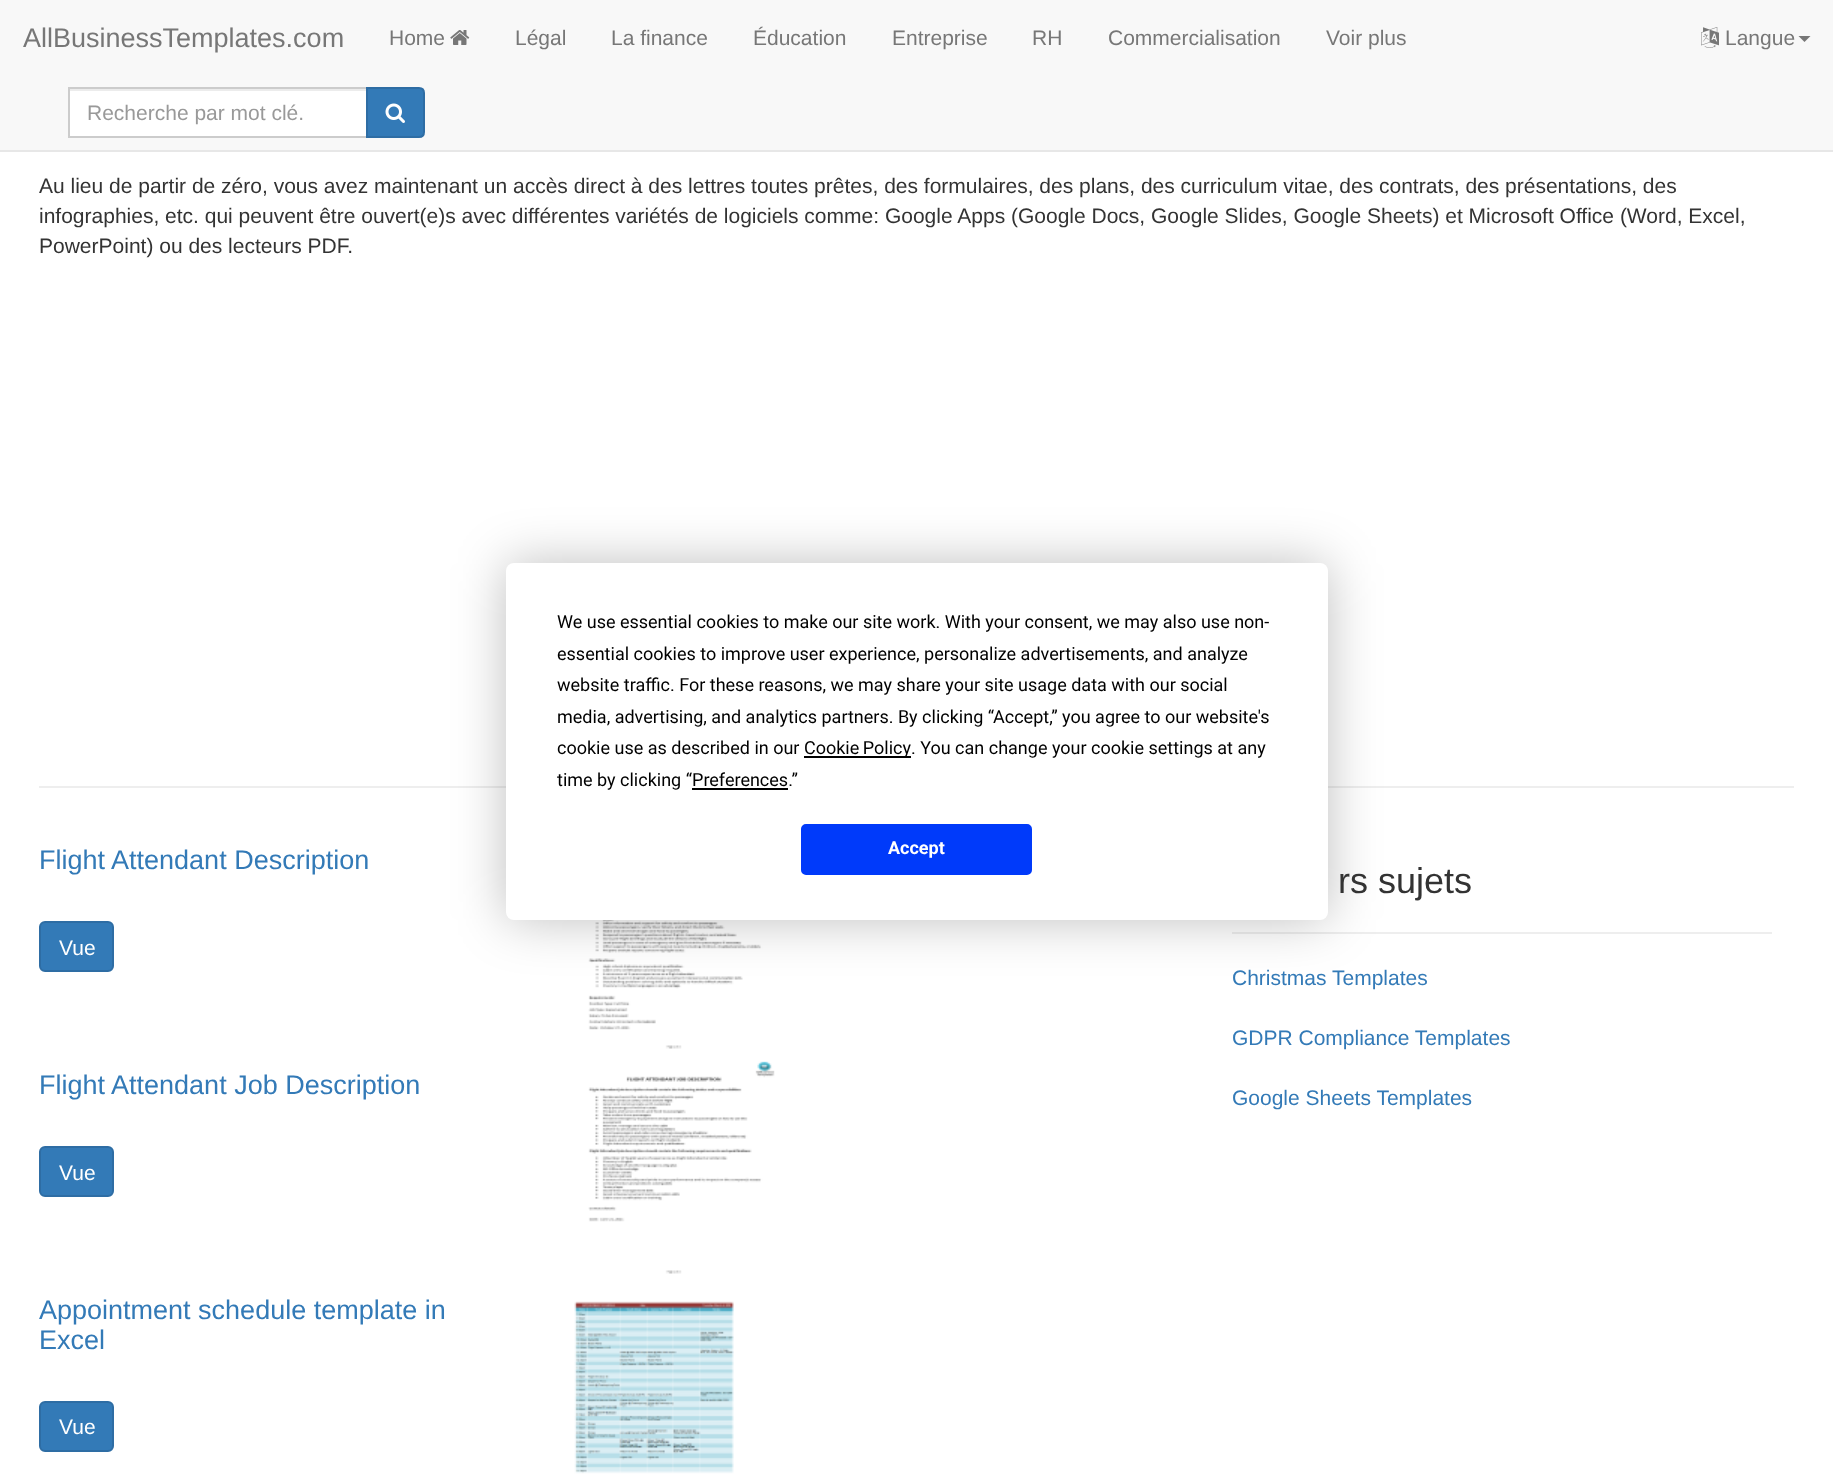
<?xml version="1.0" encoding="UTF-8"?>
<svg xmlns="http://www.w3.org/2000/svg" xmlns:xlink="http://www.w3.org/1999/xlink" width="1833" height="1481">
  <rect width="100%" height="100%" fill="#ffffff" />
  <rect width="1833" height="150" fill="#f8f8f8" />
  <rect y="150" width="1833" height="2" fill="#e7e7e7" />
  <image x="450" y="30" width="20" height="15" xlink:href="image1.png" />
  <image x="1701" y="27" width="18" height="21" xlink:href="image2.png" />
  <path d="M 1798.5 36 h 12 l -6 6 z" fill="#777777" />
  <rect x="70" y="91" width="296" height="45" fill="#ffffff" />
  <rect x="69" y="89" width="297" height="2" fill="#ececec" />
  <rect x="69" y="88" width="298" height="49" fill="none" stroke="#cccccc" stroke-width="2" />
  <path d="M 367 88 h 52 c 3 0 5 2 5 5 v 39 c 0 3 -2 5 -5 5 h -52 z" fill="#337ab7" stroke="#2e6da4" stroke-width="2" />
  <image x="385" y="103" width="20" height="20" xlink:href="image3.png" />
  <rect x="39" y="786" width="1755" height="2" fill="#eeeeee" />
  <rect x="40" y="922" width="73" height="49" rx="5" fill="#337ab7" stroke="#2e6da4" stroke-width="2" />
  <image x="588" y="920" width="182" height="129" xlink:href="image4.png" />
  <rect x="40" y="1147" width="73" height="49" rx="5" fill="#337ab7" stroke="#2e6da4" stroke-width="2" />
  <image x="588" y="1061" width="187" height="213" xlink:href="image5.png" />
  <rect x="40" y="1402" width="73" height="49" rx="5" fill="#337ab7" stroke="#2e6da4" stroke-width="2" />
  <image x="574" y="1301" width="160" height="173" xlink:href="image6.png" />
  <rect x="1232" y="932" width="540" height="2" fill="#eeeeee" />
  <rect x="506" y="563" width="822" height="357" rx="8" fill="#000000" fill-opacity="0.25" filter="blur(26px)" />
  <rect x="506" y="563" width="822" height="357" rx="8" fill="#ffffff" />
  <rect x="804" y="756" width="107" height="2" fill="#000000" />
  <rect x="692" y="788" width="96" height="2" fill="#000000" />
  <rect x="802" y="825" width="229" height="49" rx="4" fill="#003afa" stroke="#003afa" stroke-width="2" />
  <text x="389" y="45" style="font-family: Liberation Sans; font-size: 21px; fill: #777777">Home</text>
  <text x="515" y="45" style="font-family: Liberation Sans; font-size: 21px; fill: #777777">Légal</text>
  <text x="611" y="45" style="font-family: Liberation Sans; font-size: 21px; fill: #777777">La finance</text>
  <text x="753" y="45" style="font-family: Liberation Sans; font-size: 21px; fill: #777777">Éducation</text>
  <text x="892" y="45" style="font-family: Liberation Sans; font-size: 21px; fill: #777777">Entreprise</text>
  <text x="1032" y="45" style="font-family: Liberation Sans; font-size: 21px; fill: #777777">RH</text>
  <text x="1108" y="45" style="font-family: Liberation Sans; font-size: 21px; fill: #777777">Commercialisation</text>
  <text x="1326" y="45" style="font-family: Liberation Sans; font-size: 21px; fill: #777777">Voir plus</text>
  <text x="1725" y="45" style="font-family: Liberation Sans; font-size: 21px; fill: #777777">Langue</text>
  <text x="87" y="120" style="font-family: Liberation Sans; font-size: 21px; fill: #999999">Recherche par mot clé.</text>
  <text x="23" y="47" style="font-family: Liberation Sans; font-size: 27px; fill: #777777">AllBusinessTemplates.com</text>
  <text x="39" y="193" style="font-family: Liberation Sans; font-size: 21px; fill: #333333">Au lieu de partir de zéro, vous avez maintenant un accès direct à des lettres toutes prêtes, des formulaires, des plans, des curriculum vitae, des contrats, des présentations, des</text>
  <text x="39" y="223" style="font-family: Liberation Sans; font-size: 21px; fill: #333333">infographies, etc. qui peuvent être ouvert(e)s avec différentes variétés de logiciels comme: Google Apps (Google Docs, Google Slides, Google Sheets) et Microsoft Office (Word, Excel,</text>
  <text x="39" y="253" style="font-family: Liberation Sans; font-size: 21px; fill: #333333">PowerPoint) ou des lecteurs PDF.</text>
  <text x="39" y="869" style="font-family: Liberation Sans; font-size: 27px; fill: #337ab7">Flight Attendant Description</text>
  <text x="59" y="955" style="font-family: Liberation Sans; font-size: 21px; fill: #ffffff">Vue</text>
  <text x="39" y="1094" style="font-family: Liberation Sans; font-size: 27px; fill: #337ab7">Flight Attendant Job Description</text>
  <text x="59" y="1180" style="font-family: Liberation Sans; font-size: 21px; fill: #ffffff">Vue</text>
  <text x="39" y="1319" style="font-family: Liberation Sans; font-size: 27px; fill: #337ab7">Appointment schedule template in</text>
  <text x="39" y="1349" style="font-family: Liberation Sans; font-size: 27px; fill: #337ab7">Excel</text>
  <text x="59" y="1434" style="font-family: Liberation Sans; font-size: 21px; fill: #ffffff">Vue</text>
  <text x="1338" y="893" style="font-family: Liberation Sans; font-size: 36px; fill: #333333">rs sujets</text>
  <text x="1232" y="985" style="font-family: Liberation Sans; font-size: 21px; fill: #337ab7">Christmas Templates</text>
  <text x="1232" y="1045" style="font-family: Liberation Sans; font-size: 21px; fill: #337ab7">GDPR Compliance Templates</text>
  <text x="1232" y="1105" style="font-family: Liberation Sans; font-size: 21px; fill: #337ab7">Google Sheets Templates</text>
  <text x="557" y="628" style="font-family: Roboto; font-size: 18px; fill: #000000">We use essential cookies to make our site work. With your consent, we may also use non-</text>
  <text x="557" y="660" style="font-family: Roboto; font-size: 18px; fill: #000000">essential cookies to improve user experience, personalize advertisements, and analyze</text>
  <text x="557" y="691" style="font-family: Roboto; font-size: 18px; fill: #000000">website traffic. For these reasons, we may share your site usage data with our social</text>
  <text x="557" y="723" style="font-family: Roboto; font-size: 18px; fill: #000000">media, advertising, and analytics partners. By clicking “Accept,” you agree to our website's</text>
  <text x="557" y="754" style="font-family: Roboto; font-size: 18px; fill: #000000">cookie use as described in our</text>
  <text x="804" y="754" word-spacing="-1" style="font-family: Roboto; font-size: 18px; fill: #000000">Cookie Policy</text>
  <text x="911" y="754" style="font-family: Roboto; font-size: 18px; fill: #000000">. You can change your cookie settings at any</text>
  <text x="557" y="786" style="font-family: Roboto; font-size: 18px; fill: #000000">time by clicking “Preferences.”</text>
  <text x="888" y="854" style="font-family: Roboto; font-size: 18px; font-weight: bold; fill: #ffffff">Accept</text>
</svg>
